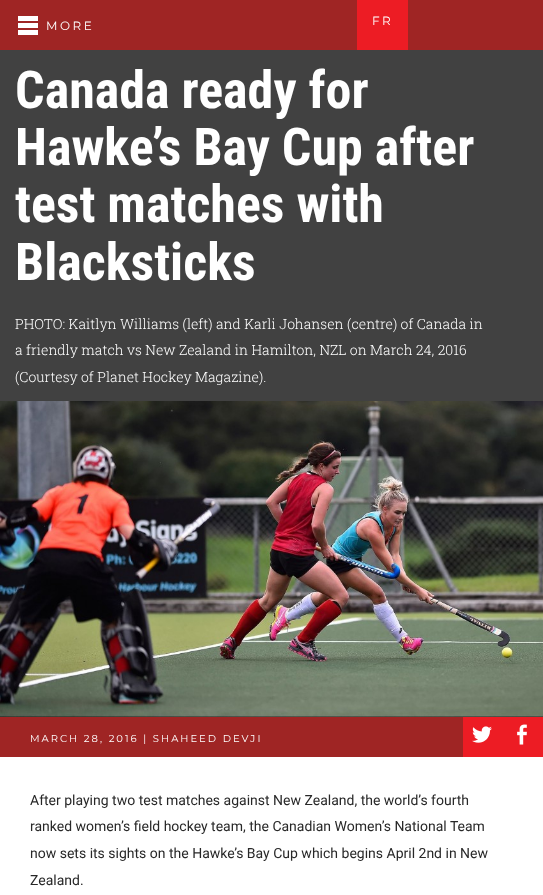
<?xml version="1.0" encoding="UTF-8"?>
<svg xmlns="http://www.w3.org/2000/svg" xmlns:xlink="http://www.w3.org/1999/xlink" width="543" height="895">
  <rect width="100%" height="100%" fill="#414141" />
  <rect width="543" height="50" fill="#9f2524" />
  <rect x="18" y="16" width="20" height="5" fill="#ffffff" />
  <rect x="18" y="23" width="20" height="5" fill="#ffffff" />
  <rect x="18" y="30" width="20" height="5" fill="#ffffff" />
  <rect x="357" width="51" height="50" fill="#ed1c24" />
  <image x="0" y="401" width="543" height="316" xlink:href="image1.png" />
  <rect y="717" width="463" height="40" fill="#9f2524" />
  <rect x="463" y="717" width="80" height="40" fill="#ed1c24" />
  <image x="472" y="726" width="20" height="17" xlink:href="image2.png" />
  <image x="517" y="724" width="10" height="21" xlink:href="image3.png" />
  <rect y="757" width="543" height="138" fill="#ffffff" />
  <text x="46" y="30" style="font-family: Montserrat; font-size: 12px; font-weight: 100; letter-spacing: 2.5px; fill: #ffffff">MORE</text>
  <text x="372" y="25" style="font-family: Montserrat; font-size: 12px; font-weight: 100; letter-spacing: 2.5px; fill: #ffffff">FR</text>
  <text x="15" y="108" style="font-family: Roboto Condensed; font-size: 52px; font-weight: bold; fill: #ffffff">Canada ready for</text>
  <text x="15" y="165" style="font-family: Roboto Condensed; font-size: 52px; font-weight: bold; fill: #ffffff">Hawke’s Bay Cup after</text>
  <text x="15" y="222" style="font-family: Roboto Condensed; font-size: 52px; font-weight: bold; fill: #ffffff">test matches with</text>
  <text x="15" y="280" style="font-family: Roboto Condensed; font-size: 52px; font-weight: bold; fill: #ffffff">Blacksticks</text>
  <text x="15" y="329" style="font-family: Roboto Slab; font-size: 14px; font-weight: 300; fill: #ffffff">PHOTO: Kaitlyn Williams (left) and Karli Johansen (centre) of Canada in</text>
  <text x="15" y="355" style="font-family: Roboto Slab; font-size: 14px; font-weight: 300; fill: #ffffff">a friendly match vs New Zealand in Hamilton, NZL on March 24, 2016</text>
  <text x="15" y="382" style="font-family: Roboto Slab; font-size: 14px; font-weight: 300; fill: #ffffff">(Courtesy of Planet Hockey Magazine).</text>
  <text x="30" y="742" style="font-family: Montserrat; font-size: 10px; font-weight: 100; letter-spacing: 2px; fill: #ffffff">MARCH 28, 2016 | SHAHEED DEVJI</text>
  <text x="30" y="805" style="font-family: Roboto; font-size: 14px; fill: #282828">After playing two test matches against New Zealand, the world’s fourth</text>
  <text x="30" y="831" style="font-family: Roboto; font-size: 14px; fill: #282828">ranked women’s field hockey team, the Canadian Women’s National Team</text>
  <text x="30" y="858" style="font-family: Roboto; font-size: 14px; fill: #282828">now sets its sights on the Hawke’s Bay Cup which begins April 2nd in New</text>
  <text x="30" y="885" style="font-family: Roboto; font-size: 14px; fill: #282828">Zealand.</text>
</svg>
